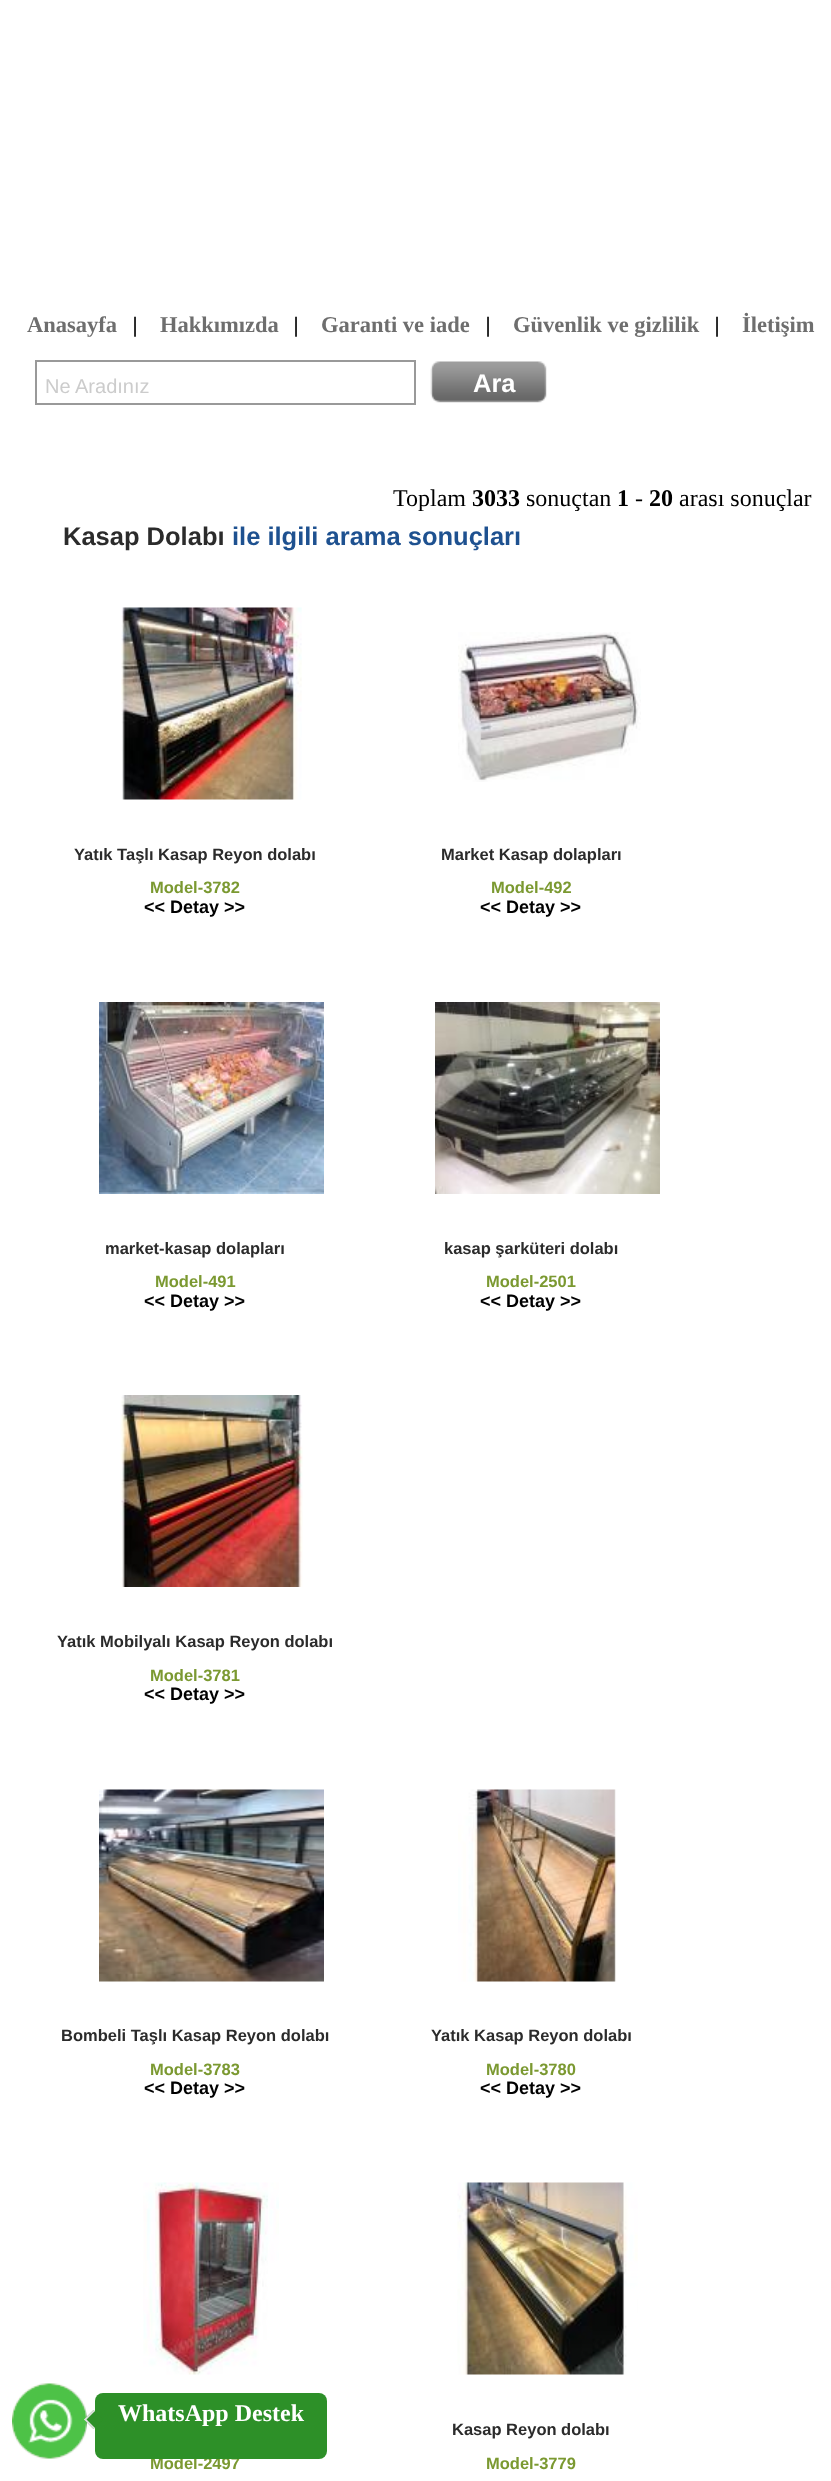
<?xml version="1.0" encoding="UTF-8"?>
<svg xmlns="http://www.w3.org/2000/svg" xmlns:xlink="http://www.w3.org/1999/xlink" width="831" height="2481">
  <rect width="100%" height="100%" fill="#ffffff" />
  <rect x="36" y="361" width="379" height="43" fill="none" stroke="#999999" stroke-width="2" />
  <image x="430" y="361" width="117" height="42" xlink:href="image1.png" />
  <image x="121" y="607" width="181" height="193" xlink:href="image2.png" />
  <image x="458" y="632" width="183" height="150" xlink:href="image3.png" />
  <image x="99" y="1002" width="225" height="192" xlink:href="image4.png" />
  <image x="435" y="1002" width="225" height="192" xlink:href="image5.png" />
  <image x="120" y="1395" width="183" height="192" xlink:href="image6.png" />
  <image x="99" y="1789" width="225" height="193" xlink:href="image7.png" />
  <image x="458" y="1789" width="159" height="193" xlink:href="image8.png" />
  <image x="143" y="2182" width="136" height="193" xlink:href="image9.png" />
  <image x="457" y="2182" width="181" height="193" xlink:href="image10.png" />
  <image x="12" y="2383" width="75" height="76" xlink:href="image11.png" />
  <text x="27" y="332" style="font-family: Liberation Serif; font-size: 22.5px; font-weight: bold; fill: #6e6e6e">Anasayfa</text>
  <text x="129" y="332" style="font-family: DejaVu Sans Mono; font-size: 20px; fill: #000000">|</text>
  <text x="160" y="332" style="font-family: Liberation Serif; font-size: 22.5px; font-weight: bold; fill: #6e6e6e">Hakkımızda</text>
  <text x="290" y="332" style="font-family: DejaVu Sans Mono; font-size: 20px; fill: #000000">|</text>
  <text x="321" y="332" style="font-family: Liberation Serif; font-size: 22.5px; font-weight: bold; fill: #6e6e6e">Garanti ve iade</text>
  <text x="482" y="332" style="font-family: DejaVu Sans Mono; font-size: 20px; fill: #000000">|</text>
  <text x="513" y="332" style="font-family: Liberation Serif; font-size: 22.5px; font-weight: bold; fill: #6e6e6e">Güvenlik ve gizlilik</text>
  <text x="711" y="332" style="font-family: DejaVu Sans Mono; font-size: 20px; fill: #000000">|</text>
  <text x="742" y="332" style="font-family: Liberation Serif; font-size: 22.5px; font-weight: bold; fill: #6e6e6e">İletişim</text>
  <text x="45" y="393" style="font-family: Liberation Sans; font-size: 20px; fill: #cccccc">Ne Aradınız</text>
  <text x="473" y="392" style="font-family: Liberation Sans; font-size: 25.5px; font-weight: bold; fill: #ffffff">Ara</text>
  <text x="393" y="506" style="font-family: Liberation Serif; font-size: 24px; fill: #000000">Toplam</text>
  <text x="472" y="506" style="font-family: Liberation Serif; font-size: 24px; font-weight: bold; fill: #000000">3033</text>
  <text x="526" y="506" style="font-family: Liberation Serif; font-size: 24px; fill: #000000">sonuçtan</text>
  <text x="617" y="506" style="font-family: Liberation Serif; font-size: 24px; font-weight: bold; fill: #000000">1</text>
  <text x="635" y="506" style="font-family: Liberation Serif; font-size: 24px; fill: #000000">-</text>
  <text x="649" y="506" style="font-family: Liberation Serif; font-size: 24px; font-weight: bold; fill: #000000">20</text>
  <text x="679" y="506" style="font-family: Liberation Serif; font-size: 24px; fill: #000000">arası sonuçlar</text>
  <text x="63" y="545" style="font-family: Liberation Sans; font-size: 25.5px; font-weight: bold; fill: #2b2b2b">Kasap Dolabı</text>
  <text x="232" y="545" style="font-family: Liberation Sans; font-size: 25.5px; font-weight: bold; fill: #1e5190">ile ilgili arama sonuçları</text>
  <text x="74" y="860" style="font-family: Liberation Sans; font-size: 16.5px; font-weight: bold; fill: #2b2b2b">Yatık Taşlı Kasap Reyon dolabı</text>
  <text x="150" y="893" style="font-family: Liberation Sans; font-size: 16.5px; font-weight: bold; fill: #7b9931">Model-3782</text>
  <text x="144" y="913" style="font-family: Liberation Sans; font-size: 18px; font-weight: bold; fill: #000000">&lt;&lt; Detay &gt;&gt;</text>
  <text x="441" y="860" style="font-family: Liberation Sans; font-size: 16.5px; font-weight: bold; fill: #2b2b2b">Market Kasap dolapları</text>
  <text x="491" y="893" style="font-family: Liberation Sans; font-size: 16.5px; font-weight: bold; fill: #7b9931">Model-492</text>
  <text x="480" y="913" style="font-family: Liberation Sans; font-size: 18px; font-weight: bold; fill: #000000">&lt;&lt; Detay &gt;&gt;</text>
  <text x="105" y="1254" style="font-family: Liberation Sans; font-size: 16.5px; font-weight: bold; fill: #2b2b2b">market-kasap dolapları</text>
  <text x="155" y="1287" style="font-family: Liberation Sans; font-size: 16.5px; font-weight: bold; fill: #7b9931">Model-491</text>
  <text x="144" y="1307" style="font-family: Liberation Sans; font-size: 18px; font-weight: bold; fill: #000000">&lt;&lt; Detay &gt;&gt;</text>
  <text x="444" y="1254" style="font-family: Liberation Sans; font-size: 16.5px; font-weight: bold; fill: #2b2b2b">kasap şarküteri dolabı</text>
  <text x="486" y="1287" style="font-family: Liberation Sans; font-size: 16.5px; font-weight: bold; fill: #7b9931">Model-2501</text>
  <text x="480" y="1307" style="font-family: Liberation Sans; font-size: 18px; font-weight: bold; fill: #000000">&lt;&lt; Detay &gt;&gt;</text>
  <text x="57" y="1647" style="font-family: Liberation Sans; font-size: 16.5px; font-weight: bold; fill: #2b2b2b">Yatık Mobilyalı Kasap Reyon dolabı</text>
  <text x="150" y="1681" style="font-family: Liberation Sans; font-size: 16.5px; font-weight: bold; fill: #7b9931">Model-3781</text>
  <text x="144" y="1700" style="font-family: Liberation Sans; font-size: 18px; font-weight: bold; fill: #000000">&lt;&lt; Detay &gt;&gt;</text>
  <text x="61" y="2041" style="font-family: Liberation Sans; font-size: 16.5px; font-weight: bold; fill: #2b2b2b">Bombeli Taşlı Kasap Reyon dolabı</text>
  <text x="150" y="2075" style="font-family: Liberation Sans; font-size: 16.5px; font-weight: bold; fill: #7b9931">Model-3783</text>
  <text x="144" y="2094" style="font-family: Liberation Sans; font-size: 18px; font-weight: bold; fill: #000000">&lt;&lt; Detay &gt;&gt;</text>
  <text x="431" y="2041" style="font-family: Liberation Sans; font-size: 16.5px; font-weight: bold; fill: #2b2b2b">Yatık Kasap Reyon dolabı</text>
  <text x="486" y="2075" style="font-family: Liberation Sans; font-size: 16.5px; font-weight: bold; fill: #7b9931">Model-3780</text>
  <text x="480" y="2094" style="font-family: Liberation Sans; font-size: 18px; font-weight: bold; fill: #000000">&lt;&lt; Detay &gt;&gt;</text>
  <text x="150" y="2469" style="font-family: Liberation Sans; font-size: 16.5px; font-weight: bold; fill: #7b9931">Model-2497</text>
  <text x="452" y="2435" style="font-family: Liberation Sans; font-size: 16.5px; font-weight: bold; fill: #2b2b2b">Kasap Reyon dolabı</text>
  <text x="486" y="2469" style="font-family: Liberation Sans; font-size: 16.5px; font-weight: bold; fill: #7b9931">Model-3779</text>
  <rect x="95" y="2393" width="232" height="66" rx="8" fill="#2d9028" />
  <path d="M 103.5 2419.5 l -10 9.5 l -9.5 -9.5 l 9.5 -9.5 z" fill="#2d9028" />
  <path d="M 95 2428 l -1.5 1 l -9.5 -9.5 l 1.5 -1 z" fill="#e2e2e2" />
  <path d="M 95 2411 l -9.5 9.5 l -1.5 -1 l 9.5 -9.5 z" fill="#e2e2e2" />
  <text x="118" y="2421" style="font-family: Liberation Serif; font-size: 24px; font-weight: bold; fill: #ffffff">WhatsApp Destek</text>
</svg>
